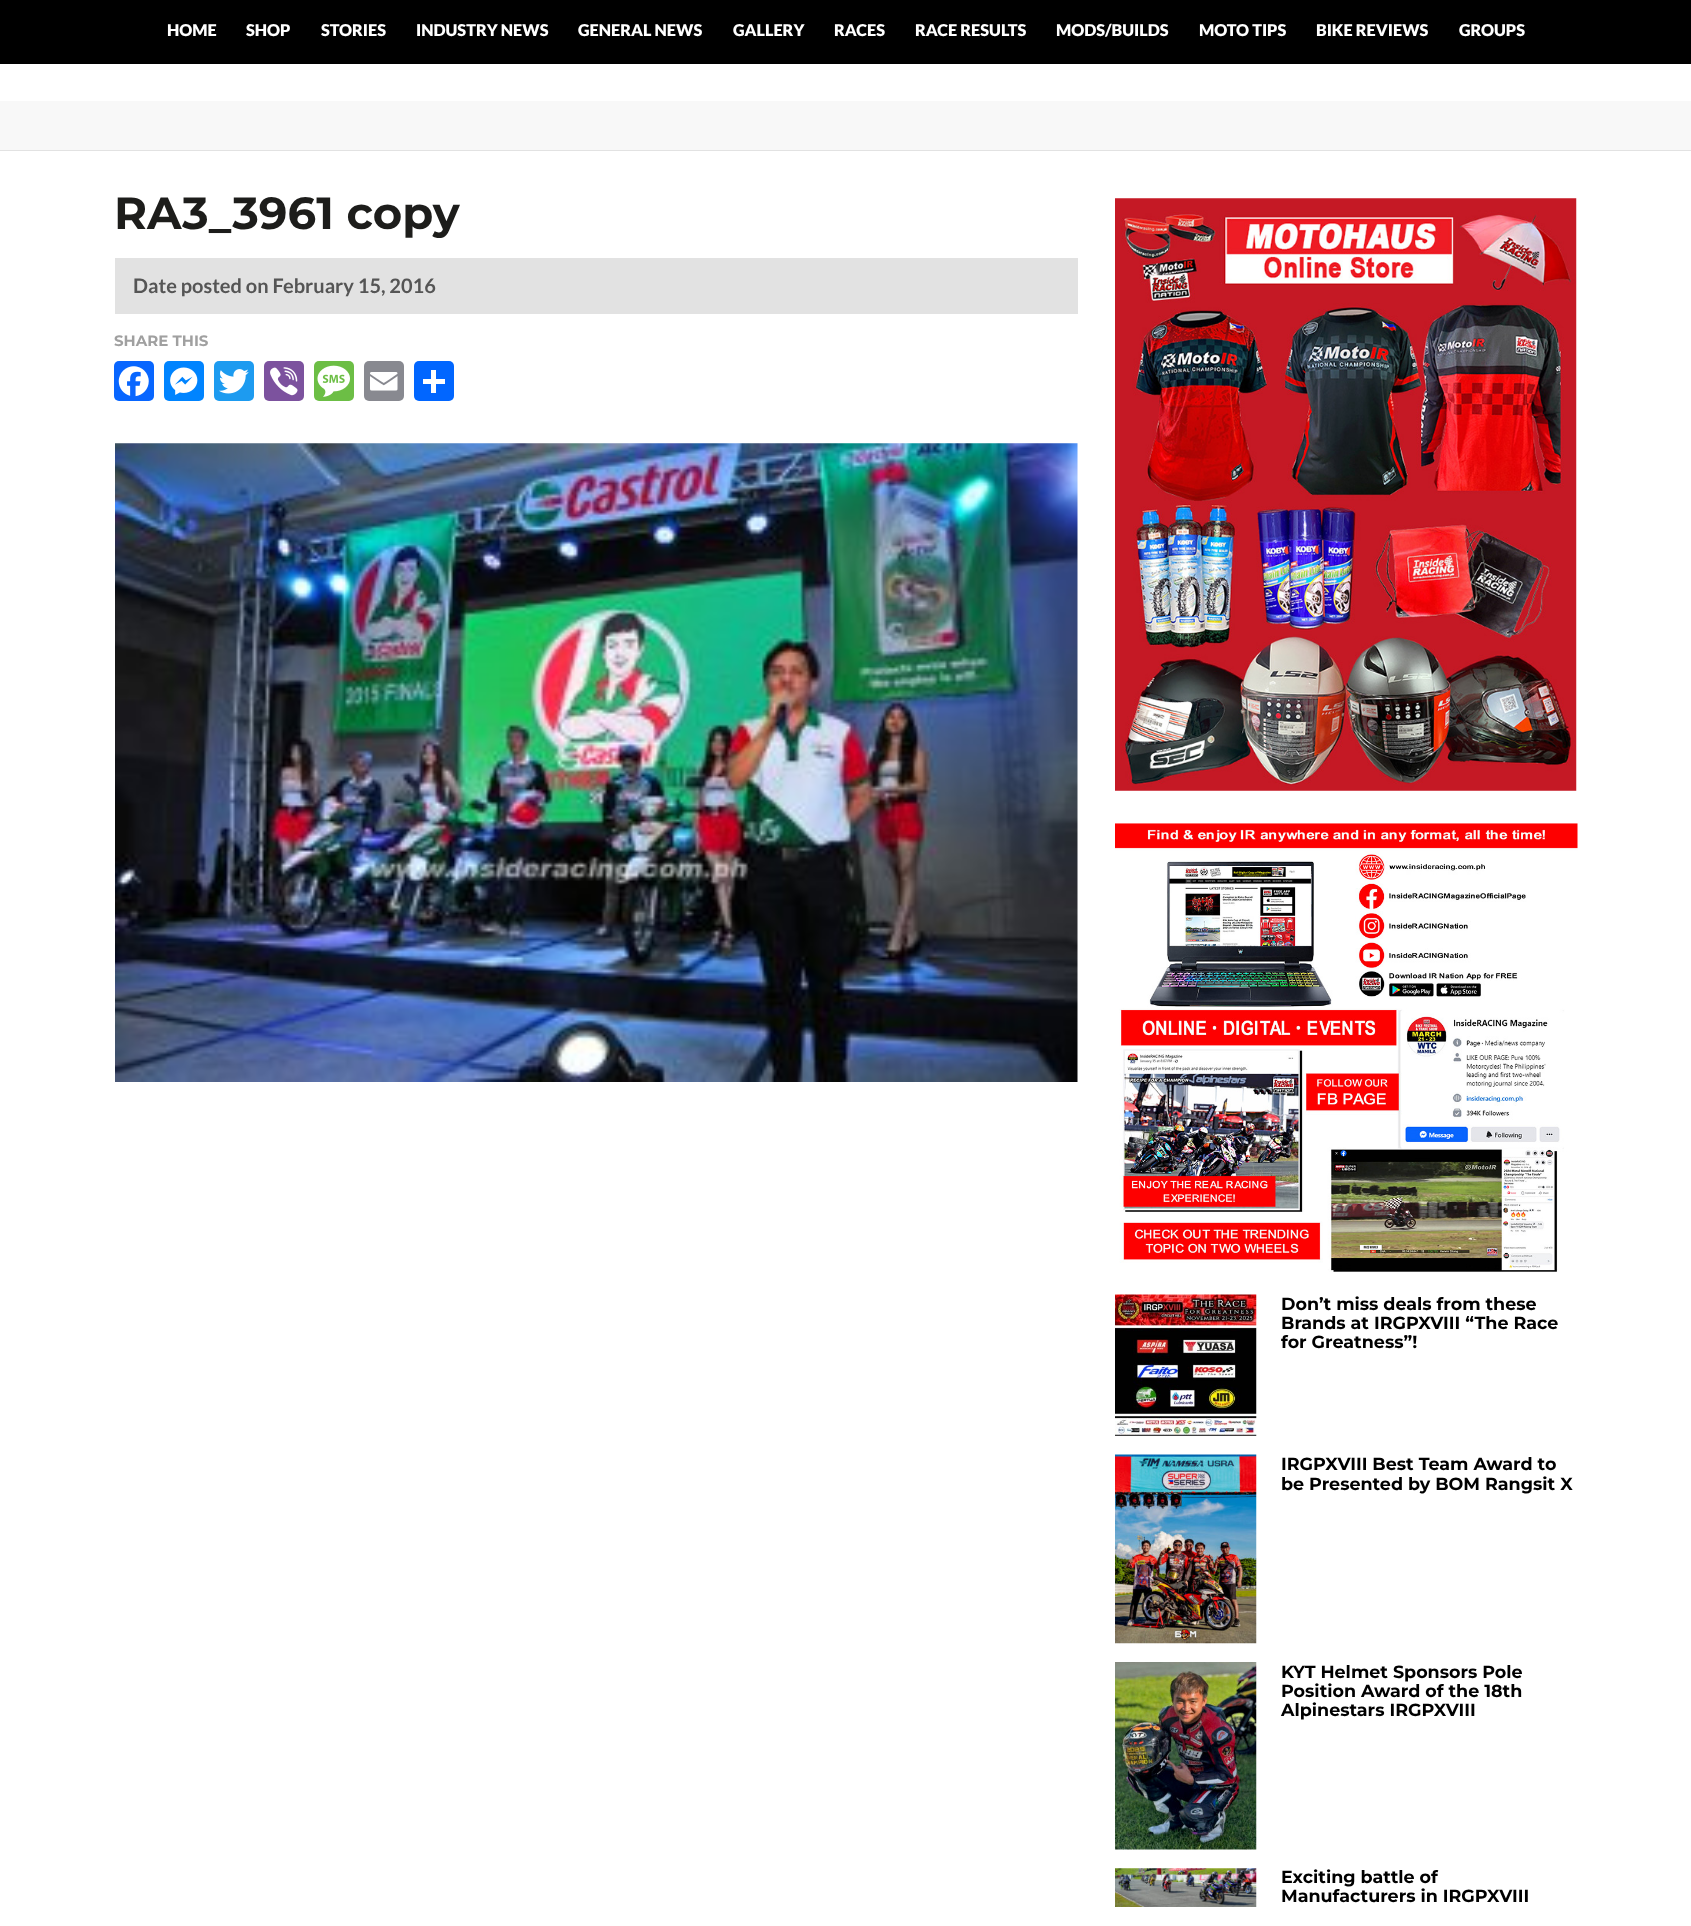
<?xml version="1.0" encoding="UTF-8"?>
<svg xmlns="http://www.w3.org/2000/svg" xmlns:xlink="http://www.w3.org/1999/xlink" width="1691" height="1926">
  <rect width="100%" height="100%" fill="#ffffff" />
  <rect width="1691" height="64" fill="#000000" />
  <rect y="101" width="1691" height="49" fill="#f8f8f8" />
  <rect y="150" width="1691" height="1" fill="#e2e2e2" />
  <rect x="115" y="258" width="963" height="56" fill="#e2e2e2" />
  <rect x="114" y="361" width="40" height="40" rx="5" fill="#0866ff" />
  <image x="118" y="366" width="31" height="31" xlink:href="image1.png" />
  <rect x="164" y="361" width="40" height="40" rx="5" fill="#0084ff" />
  <image x="170" y="367" width="28" height="28" xlink:href="image2.png" />
  <rect x="214" y="361" width="40" height="40" rx="5" fill="#1d9bf0" />
  <image x="219" y="369" width="30" height="25" xlink:href="image3.png" />
  <rect x="264" y="361" width="40" height="40" rx="5" fill="#7c529e" />
  <image x="270" y="367" width="28" height="29" xlink:href="image4.png" />
  <rect x="314" y="361" width="40" height="40" rx="5" fill="#6cbe45" />
  <image x="317" y="365" width="33" height="32" xlink:href="image5.png" />
  <rect x="364" y="361" width="40" height="40" rx="5" fill="#888990" />
  <image x="370" y="372" width="28" height="19" xlink:href="image6.png" />
  <rect x="414" y="361" width="40" height="40" rx="5" fill="#0166ff" />
  <rect x="431" y="370" width="5" height="23" fill="#ffffff" />
  <rect x="423" y="379" width="22" height="5" fill="#ffffff" />
  <image x="115" y="443" width="963" height="639" xlink:href="image7.png" />
  <image x="1115" y="198" width="462" height="593" xlink:href="image8.png" />
  <image x="1115" y="823" width="463" height="449" xlink:href="image9.png" />
  <image x="1115" y="1294" width="142" height="142" xlink:href="image10.png" />
  <image x="1115" y="1454" width="142" height="190" xlink:href="image11.png" />
  <image x="1115" y="1662" width="142" height="188" xlink:href="image12.png" />
  <image x="1115" y="1868" width="142" height="39" xlink:href="image13.png" />
  <text x="167" y="36" style="font-family: Lato; font-size: 16.25px; font-weight: 900; fill: #ffffff">HOME</text>
  <text x="246" y="36" style="font-family: Lato; font-size: 16.25px; font-weight: 900; fill: #ffffff">SHOP</text>
  <text x="321" y="36" style="font-family: Lato; font-size: 16.25px; font-weight: 900; fill: #ffffff">STORIES</text>
  <text x="416" y="36" style="font-family: Lato; font-size: 16.25px; font-weight: 900; fill: #ffffff">INDUSTRY NEWS</text>
  <text x="578" y="36" style="font-family: Lato; font-size: 16.25px; font-weight: 900; fill: #ffffff">GENERAL NEWS</text>
  <text x="733" y="36" style="font-family: Lato; font-size: 16.25px; font-weight: 900; fill: #ffffff">GALLERY</text>
  <text x="834" y="36" style="font-family: Lato; font-size: 16.25px; font-weight: 900; fill: #ffffff">RACES</text>
  <text x="915" y="36" style="font-family: Lato; font-size: 16.25px; font-weight: 900; fill: #ffffff">RACE RESULTS</text>
  <text x="1056" y="36" style="font-family: Lato; font-size: 16.25px; font-weight: 900; fill: #ffffff">MODS/BUILDS</text>
  <text x="1199" y="36" style="font-family: Lato; font-size: 16.25px; font-weight: 900; fill: #ffffff">MOTO TIPS</text>
  <text x="1316" y="36" style="font-family: Lato; font-size: 16.25px; font-weight: 900; fill: #ffffff">BIKE REVIEWS</text>
  <text x="1459" y="36" style="font-family: Lato; font-size: 16.25px; font-weight: 900; fill: #ffffff">GROUPS</text>
  <text x="114" y="229" style="font-family: Montserrat; font-size: 45px; font-weight: bold; fill: #1d1d1b">RA3_3961 copy</text>
  <text x="133" y="293" style="font-family: Lato; font-size: 20px; font-weight: bold; fill: #555555">Date posted on February 15, 2016</text>
  <text x="114" y="346" style="font-family: Montserrat; font-size: 15px; font-weight: bold; fill: #a0a0a0">SHARE THIS</text>
  <text x="1281" y="1310" style="font-family: Montserrat; font-size: 17.5px; font-weight: bold; fill: #000000">Don’t miss deals from these</text>
  <text x="1281" y="1329" style="font-family: Montserrat; font-size: 17.5px; font-weight: bold; fill: #000000">Brands at IRGPXVIII “The Race</text>
  <text x="1281" y="1348" style="font-family: Montserrat; font-size: 17.5px; font-weight: bold; fill: #000000">for Greatness”!</text>
  <text x="1281" y="1470" style="font-family: Montserrat; font-size: 17.5px; font-weight: bold; fill: #000000">IRGPXVIII Best Team Award to</text>
  <text x="1281" y="1490" style="font-family: Montserrat; font-size: 17.5px; font-weight: bold; fill: #000000">be Presented by BOM Rangsit X</text>
  <text x="1281" y="1678" style="font-family: Montserrat; font-size: 17.5px; font-weight: bold; fill: #000000">KYT Helmet Sponsors Pole</text>
  <text x="1281" y="1697" style="font-family: Montserrat; font-size: 17.5px; font-weight: bold; fill: #000000">Position Award of the 18th</text>
  <text x="1281" y="1716" style="font-family: Montserrat; font-size: 17.5px; font-weight: bold; fill: #000000">Alpinestars IRGPXVIII</text>
  <text x="1281" y="1883" style="font-family: Montserrat; font-size: 17.5px; font-weight: bold; fill: #000000">Exciting battle of</text>
  <text x="1281" y="1902" style="font-family: Montserrat; font-size: 17.5px; font-weight: bold; fill: #000000">Manufacturers in IRGPXVIII</text>
</svg>
